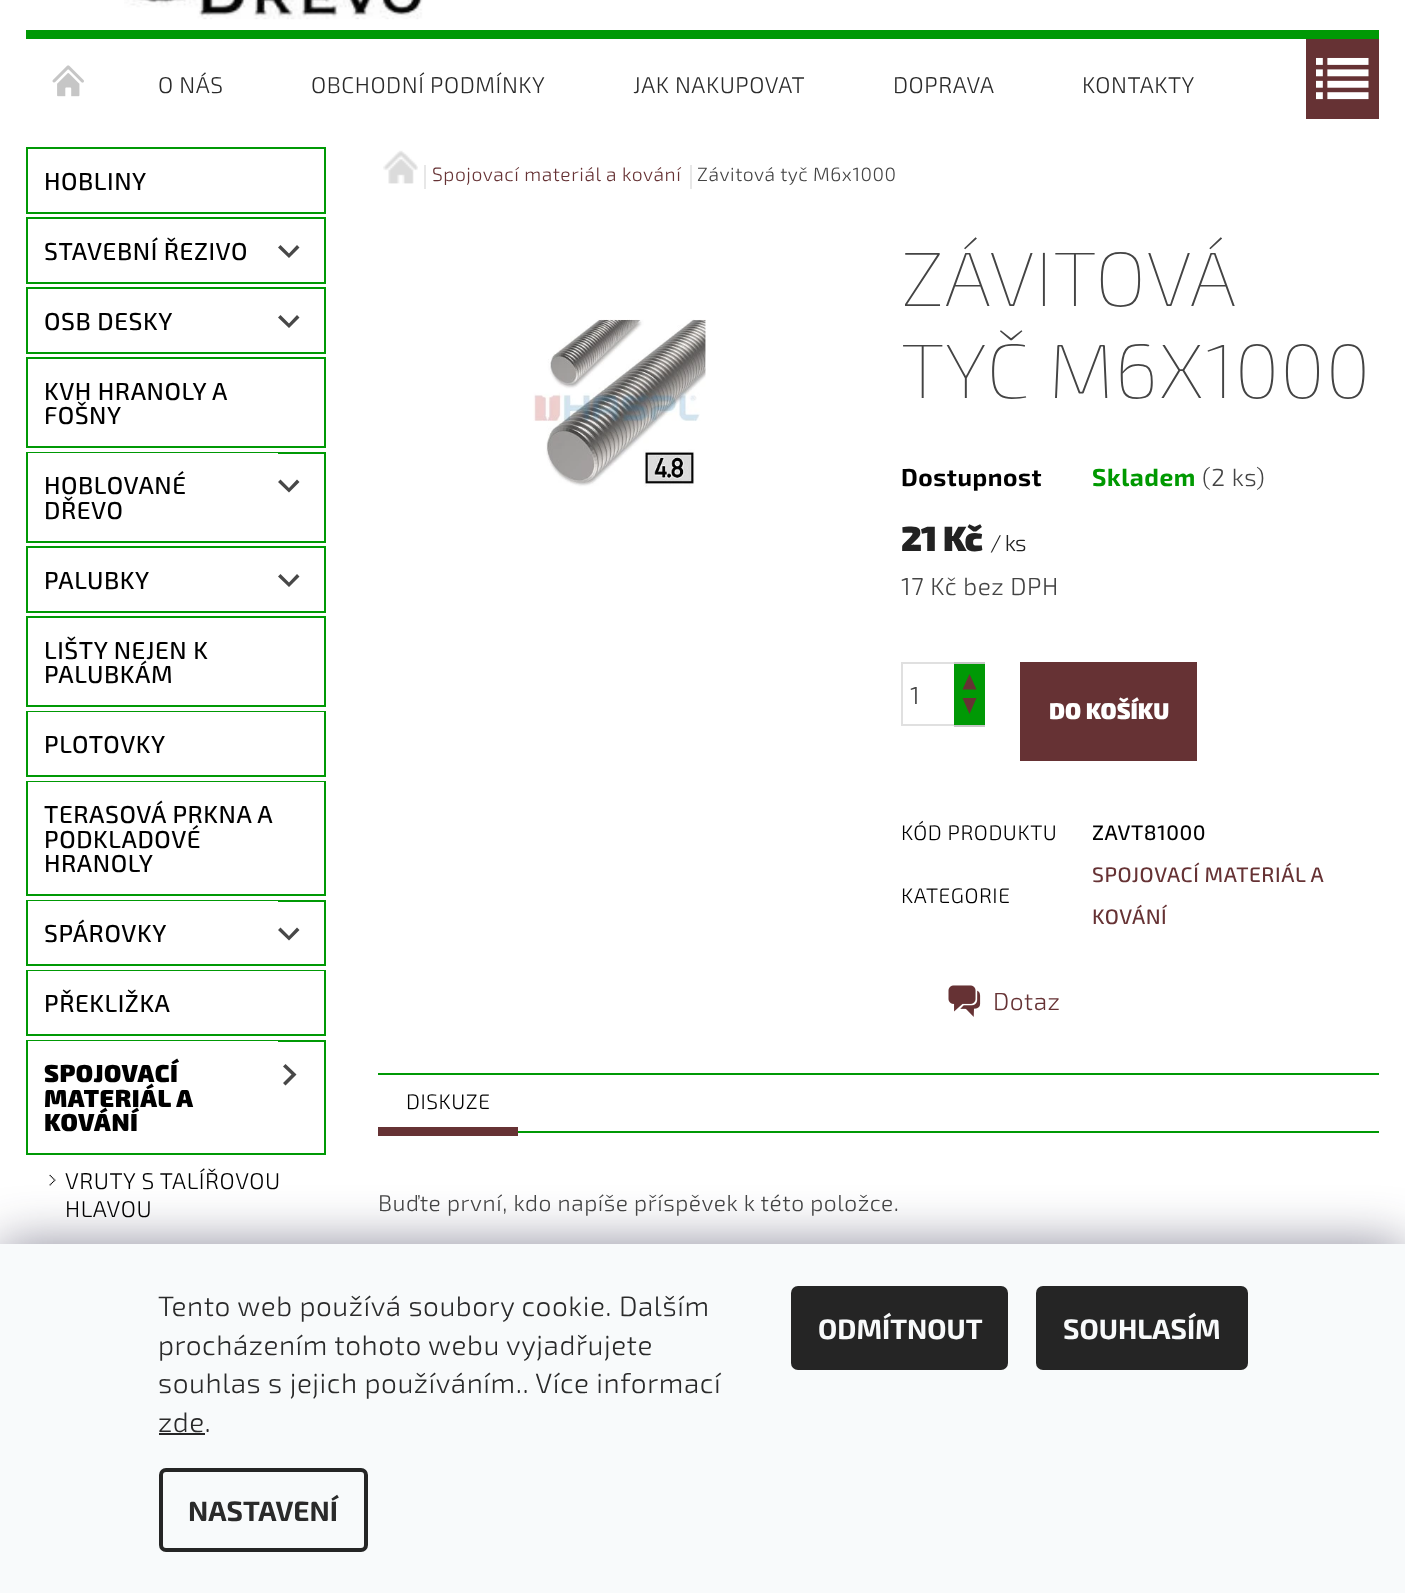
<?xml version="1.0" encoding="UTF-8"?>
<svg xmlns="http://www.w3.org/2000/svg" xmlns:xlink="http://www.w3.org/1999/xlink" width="1405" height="1593">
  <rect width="100%" height="100%" fill="#ffffff" />
  <image x="124" y="0" width="299" height="20" xlink:href="image1.png" />
  <rect x="26" y="30" width="1353" height="9" fill="#009905" />
  <image x="52" y="65" width="32" height="32" xlink:href="image2.png" />
  <rect x="1306" y="39" width="73" height="80" fill="#663234" />
  <image x="1316" y="57" width="53" height="43" xlink:href="image3.png" />
  <rect x="27" y="148" width="298" height="65" fill="none" stroke="#009905" stroke-width="2" />
  <rect x="27" y="218" width="298" height="65" fill="none" stroke="#009905" stroke-width="2" />
  <path d="M 278 247.5 l 11 10.5 l 10.5 -10.5 l -2.5 -2.5 l -8 8.5 l -8.5 -8.5 z" fill="#484848" />
  <rect x="27" y="288" width="298" height="65" fill="none" stroke="#009905" stroke-width="2" />
  <path d="M 278 317.5 l 11 10.5 l 10.5 -10.5 l -2.5 -2.5 l -8 8.5 l -8.5 -8.5 z" fill="#484848" />
  <rect x="27" y="358" width="298" height="89" fill="none" stroke="#009905" stroke-width="2" />
  <rect x="27" y="453" width="298" height="89" fill="none" stroke="#009905" stroke-width="2" />
  <rect x="28" y="453" width="250" height="1" fill="#ffffff" />
  <path d="M 278 482 l 11 10.5 l 10.5 -10.5 l -2.5 -2.5 l -8 8.5 l -8.5 -8.5 z" fill="#484848" />
  <rect x="27" y="547" width="298" height="65" fill="none" stroke="#009905" stroke-width="2" />
  <path d="M 278 576.5 l 11 10.5 l 10.5 -10.5 l -2.5 -2.5 l -8 8.5 l -8.5 -8.5 z" fill="#484848" />
  <rect x="27" y="617" width="298" height="89" fill="none" stroke="#009905" stroke-width="2" />
  <rect x="27" y="712" width="298" height="64" fill="none" stroke="#009905" stroke-width="2" />
  <rect x="28" y="712" width="296" height="1" fill="#ffffff" />
  <rect x="27" y="782" width="298" height="113" fill="none" stroke="#009905" stroke-width="2" />
  <rect x="28" y="782" width="296" height="1" fill="#ffffff" />
  <rect x="27" y="901" width="298" height="64" fill="none" stroke="#009905" stroke-width="2" />
  <rect x="28" y="901" width="250" height="1" fill="#ffffff" />
  <path d="M 278 930 l 11 10.5 l 10.5 -10.5 l -2.5 -2.5 l -8 8.5 l -8.5 -8.5 z" fill="#484848" />
  <rect x="27" y="971" width="298" height="64" fill="none" stroke="#009905" stroke-width="2" />
  <rect x="28" y="971" width="296" height="1" fill="#ffffff" />
  <rect x="27" y="1041" width="298" height="113" fill="none" stroke="#009905" stroke-width="2" />
  <rect x="28" y="1041" width="250" height="1" fill="#ffffff" />
  <path d="M 285.5 1085.5 l 11 -11 l -11 -10.5 l -2.5 2.5 l 8.5 8 l -8.5 8.5 z" fill="#484848" />
  <image x="49" y="1174" width="7" height="12" xlink:href="image4.png" />
  <image x="383" y="150" width="35" height="34" xlink:href="image5.png" />
  <rect x="424" y="165" width="2" height="24" fill="#e7e7e7" />
  <rect x="690" y="165" width="2" height="24" fill="#e7e7e7" />
  <image x="533" y="319" width="173" height="168" xlink:href="image6.png" />
  <rect x="902" y="663" width="82" height="62" fill="none" stroke="#e0e0e0" stroke-width="2" />
  <rect x="954" y="664" width="31" height="61" fill="#009905" />
  <rect x="954" y="662" width="31" height="2" fill="#c6c6c6" />
  <path d="M 976.5 689.5 h -14 l 7 -15.5 z" fill="#663234" />
  <rect x="954" y="725" width="31" height="2" fill="#c6c6c6" />
  <path d="M 962.5 698 h 14 l -7 16 z" fill="#663234" />
  <rect x="1020" y="662" width="177" height="99" fill="#663234" />
  <image x="948" y="985" width="33" height="32" xlink:href="image7.png" />
  <rect x="378" y="1073" width="1001" height="2" fill="#009905" />
  <rect x="518" y="1131" width="861" height="2" fill="#009905" />
  <rect x="378" y="1127" width="140" height="9" fill="#663234" />
  <rect y="1244" width="1405" height="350" fill="#1b1939" fill-opacity="0.5" filter="blur(26px)" />
  <rect y="1244" width="1405" height="349" fill="#f8fafb" />
  <rect x="159" y="1433" width="46" height="2" fill="#252525" />
  <rect x="161" y="1470" width="205" height="80" rx="5" fill="none" stroke="#252525" stroke-width="4" />
  <rect x="791" y="1286" width="217" height="84" rx="7" fill="#252525" />
  <rect x="1036" y="1286" width="212" height="84" rx="7" fill="#252525" />
  <text x="158" y="93" style="font-family: 'Exo 2'; font-size: 22.75px; font-weight: 300; letter-spacing: 0.55px; fill: #2a2a2a">O NÁS</text>
  <text x="311" y="93" style="font-family: 'Exo 2'; font-size: 22.75px; font-weight: 300; letter-spacing: 0.55px; fill: #2a2a2a">OBCHODNÍ PODMÍNKY</text>
  <text x="633" y="93" style="font-family: 'Exo 2'; font-size: 22.75px; font-weight: 300; letter-spacing: 0.55px; fill: #2a2a2a">JAK NAKUPOVAT</text>
  <text x="893" y="93" style="font-family: 'Exo 2'; font-size: 22.75px; font-weight: 300; letter-spacing: 0.55px; fill: #2a2a2a">DOPRAVA</text>
  <text x="1082" y="93" style="font-family: 'Exo 2'; font-size: 22.75px; font-weight: 300; letter-spacing: 0.55px; fill: #2a2a2a">KONTAKTY</text>
  <text x="44" y="190" style="font-family: 'Exo 2'; font-size: 24.5px; font-weight: 500; letter-spacing: 0.55px; fill: #000000">HOBLINY</text>
  <text x="44" y="260" style="font-family: 'Exo 2'; font-size: 24.5px; font-weight: 500; letter-spacing: 0.55px; fill: #000000">STAVEBNÍ ŘEZIVO</text>
  <text x="44" y="330" style="font-family: 'Exo 2'; font-size: 24.5px; font-weight: 500; letter-spacing: 0.55px; fill: #000000">OSB DESKY</text>
  <text x="44" y="400" style="font-family: 'Exo 2'; font-size: 24.5px; font-weight: 500; letter-spacing: 0.55px; fill: #000000">KVH HRANOLY A</text>
  <text x="44" y="424" style="font-family: 'Exo 2'; font-size: 24.5px; font-weight: 500; letter-spacing: 0.55px; fill: #000000">FOŠNY</text>
  <text x="44" y="494" style="font-family: 'Exo 2'; font-size: 24.5px; font-weight: 500; letter-spacing: 0.55px; fill: #000000">HOBLOVANÉ</text>
  <text x="44" y="519" style="font-family: 'Exo 2'; font-size: 24.5px; font-weight: 500; letter-spacing: 0.55px; fill: #000000">DŘEVO</text>
  <text x="44" y="589" style="font-family: 'Exo 2'; font-size: 24.5px; font-weight: 500; letter-spacing: 0.55px; fill: #000000">PALUBKY</text>
  <text x="44" y="659" style="font-family: 'Exo 2'; font-size: 24.5px; font-weight: 500; letter-spacing: 0.55px; fill: #000000">LIŠTY NEJEN K</text>
  <text x="44" y="683" style="font-family: 'Exo 2'; font-size: 24.5px; font-weight: 500; letter-spacing: 0.55px; fill: #000000">PALUBKÁM</text>
  <text x="44" y="753" style="font-family: 'Exo 2'; font-size: 24.5px; font-weight: 500; letter-spacing: 0.55px; fill: #000000">PLOTOVKY</text>
  <text x="44" y="823" style="font-family: 'Exo 2'; font-size: 24.5px; font-weight: 500; letter-spacing: 0.55px; fill: #000000">TERASOVÁ PRKNA A</text>
  <text x="44" y="848" style="font-family: 'Exo 2'; font-size: 24.5px; font-weight: 500; letter-spacing: 0.55px; fill: #000000">PODKLADOVÉ</text>
  <text x="44" y="872" style="font-family: 'Exo 2'; font-size: 24.5px; font-weight: 500; letter-spacing: 0.55px; fill: #000000">HRANOLY</text>
  <text x="44" y="942" style="font-family: 'Exo 2'; font-size: 24.5px; font-weight: 500; letter-spacing: 0.55px; fill: #000000">SPÁROVKY</text>
  <text x="44" y="1012" style="font-family: 'Exo 2'; font-size: 24.5px; font-weight: 500; letter-spacing: 0.55px; fill: #000000">PŘEKLIŽKA</text>
  <text x="44" y="1082" style="font-family: 'Exo 2'; font-size: 24.5px; font-weight: 900; letter-spacing: 0.55px; fill: #000000">SPOJOVACÍ</text>
  <text x="44" y="1107" style="font-family: 'Exo 2'; font-size: 24.5px; font-weight: 900; letter-spacing: 0.55px; fill: #000000">MATERIÁL A</text>
  <text x="44" y="1131" style="font-family: 'Exo 2'; font-size: 24.5px; font-weight: 900; letter-spacing: 0.55px; fill: #000000">KOVÁNÍ</text>
  <text x="65" y="1189" style="font-family: 'Exo 2'; font-size: 22.75px; font-weight: 300; letter-spacing: 0.55px; fill: #000000">VRUTY S TALÍŘOVOU</text>
  <text x="65" y="1217" style="font-family: 'Exo 2'; font-size: 22.75px; font-weight: 300; letter-spacing: 0.55px; fill: #000000">HLAVOU</text>
  <text x="432" y="181" style="font-family: 'Exo 2'; font-size: 19.25px; font-weight: 300; letter-spacing: 0.55px; fill: #663234">Spojovací materiál a kování</text>
  <text x="697" y="181" style="font-family: 'Exo 2'; font-size: 19.25px; font-weight: 300; letter-spacing: 0.55px; fill: #444444">Závitová tyč M6x1000</text>
  <text x="901" y="306" style="font-family: 'Exo 2'; font-size: 77px; font-weight: 100; letter-spacing: 0.55px; fill: #444444">ZÁVITOVÁ</text>
  <text x="901" y="398" style="font-family: 'Exo 2'; font-size: 77px; font-weight: 100; letter-spacing: 0.55px; fill: #444444">TYČ M6X1000</text>
  <text x="901" y="486" style="font-family: 'Exo 2'; font-size: 24.5px; font-weight: bold; letter-spacing: 0.55px; fill: #000000">Dostupnost</text>
  <text x="1092" y="486" style="font-family: 'Exo 2'; font-size: 24.5px; font-weight: bold; letter-spacing: 0.55px; fill: #009901">Skladem</text>
  <text x="1202" y="486" style="font-family: 'Exo 2'; font-size: 24.5px; font-weight: 300; letter-spacing: 0.55px; fill: #444444">(2 ks)</text>
  <text x="901" y="551" style="font-family: 'Exo 2'; font-size: 35px; font-weight: 900; letter-spacing: -1px; fill: #222222">21 Kč</text>
  <text x="990" y="551" style="font-family: 'Exo 2'; font-size: 22.75px; font-weight: 300; letter-spacing: -1px; fill: #222222">/ ks</text>
  <text x="901" y="595" style="font-family: 'Exo 2'; font-size: 24.5px; font-weight: 300; letter-spacing: 0.55px; fill: #444444">17 Kč bez DPH</text>
  <text x="910" y="704" style="font-family: 'Exo 2'; font-size: 24.5px; font-weight: 300; fill: #444444">1</text>
  <text x="1049" y="719" style="font-family: 'Exo 2'; font-size: 22.75px; font-weight: 900; fill: #ffffff">DO KOŠÍKU</text>
  <text x="901" y="840" style="font-family: 'Exo 2'; font-size: 21px; font-weight: 300; letter-spacing: 0.55px; fill: #000000">KÓD PRODUKTU</text>
  <text x="1092" y="840" style="font-family: 'Exo 2'; font-size: 21px; font-weight: 500; letter-spacing: 0.55px; fill: #000000">ZAVT81000</text>
  <text x="901" y="903" style="font-family: 'Exo 2'; font-size: 21px; font-weight: 300; letter-spacing: 0.55px; fill: #000000">KATEGORIE</text>
  <text x="1092" y="882" style="font-family: 'Exo 2'; font-size: 21px; font-weight: 500; letter-spacing: 0.55px; fill: #663234">SPOJOVACÍ MATERIÁL A</text>
  <text x="1092" y="924" style="font-family: 'Exo 2'; font-size: 21px; font-weight: 500; letter-spacing: 0.55px; fill: #663234">KOVÁNÍ</text>
  <text x="993" y="1010" style="font-family: 'Exo 2'; font-size: 24.5px; font-weight: 300; letter-spacing: 0.55px; fill: #663234">Dotaz</text>
  <text x="406" y="1109" style="font-family: 'Exo 2'; font-size: 21px; font-weight: 300; letter-spacing: 0.55px; fill: #000000">DISKUZE</text>
  <text x="378" y="1211" style="font-family: 'Exo 2'; font-size: 22.75px; font-weight: 300; letter-spacing: 0.55px; fill: #444444">Buďte první, kdo napíše příspěvek k této položce.</text>
  <text x="158" y="1316" style="font-family: 'Exo 2'; font-size: 28px; font-weight: 300; letter-spacing: 0.55px; fill: #2a2a2a">Tento web používá soubory cookie. Dalším</text>
  <text x="158" y="1355" style="font-family: 'Exo 2'; font-size: 28px; font-weight: 300; letter-spacing: 0.55px; fill: #2a2a2a">procházením tohoto webu vyjadřujete</text>
  <text x="158" y="1393" style="font-family: 'Exo 2'; font-size: 28px; font-weight: 300; letter-spacing: 0.55px; fill: #2a2a2a">souhlas s jejich používáním.. Více informací</text>
  <text x="158" y="1432" style="font-family: 'Exo 2'; font-size: 28px; font-weight: 300; letter-spacing: 0.55px; fill: #2a2a2a">zde.</text>
  <text x="188" y="1521" style="font-family: 'Exo 2'; font-size: 28px; font-weight: bold; fill: #2a2a2a">NASTAVENÍ</text>
  <text x="818" y="1339" style="font-family: 'Exo 2'; font-size: 28px; font-weight: bold; fill: #f8fafb">ODMÍTNOUT</text>
  <text x="1063" y="1339" style="font-family: 'Exo 2'; font-size: 28px; font-weight: bold; fill: #f8fafb">SOUHLASÍM</text>
</svg>
